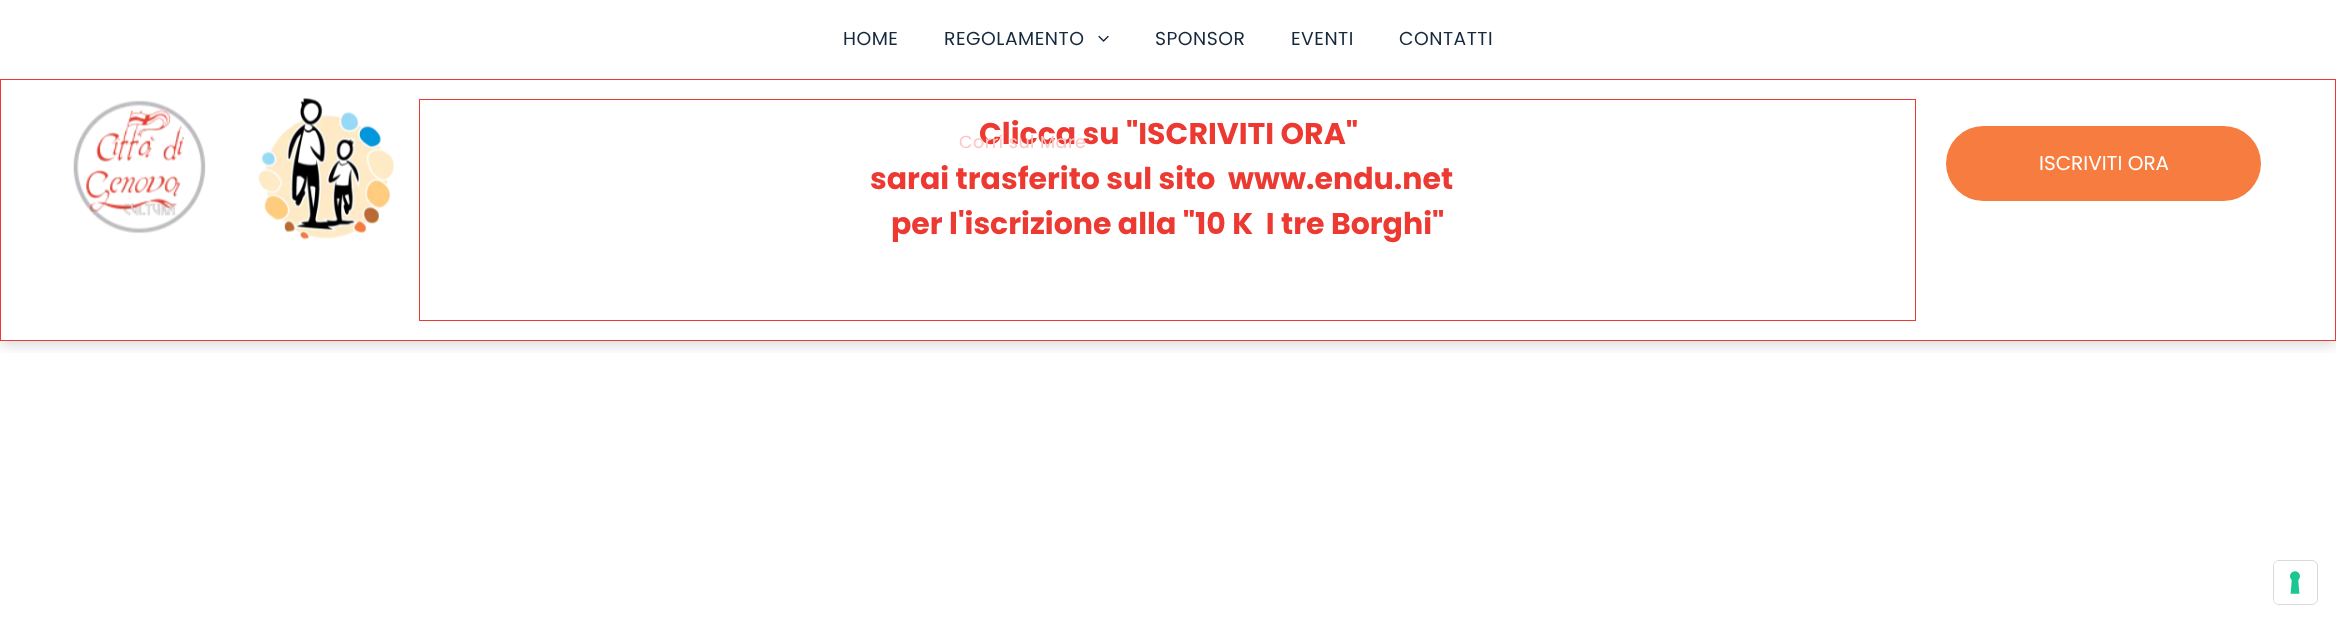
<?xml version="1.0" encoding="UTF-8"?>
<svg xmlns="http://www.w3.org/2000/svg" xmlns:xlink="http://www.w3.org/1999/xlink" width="2336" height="623">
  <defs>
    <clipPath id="clip1"><rect x="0" y="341" width="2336" height="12" /></clipPath>
  </defs>
  <rect width="100%" height="100%" fill="#ffffff" />
  <g clip-path="url(#clip1)">
    <rect y="4" width="2336" height="341" fill="#000000" fill-opacity="0.15" filter="blur(7px)" />
  </g>
  <image x="1098" y="35" width="11" height="7" xlink:href="image1.png" />
  <rect x="0.5" y="79.5" width="2335" height="261" fill="none" stroke="#ec3931" />
  <image x="73" y="100" width="133" height="134" xlink:href="image2.png" />
  <image x="258" y="98" width="136" height="142" xlink:href="image3.png" />
  <rect x="419.5" y="99.5" width="1496" height="221" fill="none" stroke="#ec3931" />
  <rect x="1946" y="126" width="315" height="75" rx="37.5" fill="#f67c3f" />
  <rect x="2273.5" y="560.5" width="44" height="44" rx="5.5" fill="none" stroke="#d9d9d9" />
  <rect x="2274" y="561" width="42" height="43" rx="5" fill="#ffffff" />
  <image x="2290" y="571" width="10" height="23" xlink:href="image4.png" />
  <text x="843" y="45" style="font-family: Poppins; font-size: 18.75px; letter-spacing: 0.5px; fill: #16293c">HOME</text>
  <text x="944" y="45" style="font-family: Poppins; font-size: 18.75px; letter-spacing: 0.5px; fill: #16293c">REGOLAMENTO</text>
  <text x="1155" y="45" style="font-family: Poppins; font-size: 18.75px; letter-spacing: 0.5px; fill: #16293c">SPONSOR</text>
  <text x="1291" y="45" style="font-family: Poppins; font-size: 18.75px; letter-spacing: 0.5px; fill: #16293c">EVENTI</text>
  <text x="1399" y="45" style="font-family: Poppins; font-size: 18.75px; letter-spacing: 0.5px; fill: #16293c">CONTATTI</text>
  <text x="979" y="144" style="font-family: Poppins; font-size: 30px; font-weight: bold; fill: #ec3931">Clicca su "ISCRIVITI ORA"</text>
  <text x="959" y="148" style="font-family: Poppins; font-size: 17.5px; letter-spacing: 0.5px; fill: #fac7c5">Corri sul Mare</text>
  <text x="870" y="189" style="font-family: Poppins; font-size: 30px; font-weight: bold; fill: #ec3931" xml:space="preserve">sarai trasferito sul sito  www.endu.net</text>
  <text x="891" y="234" style="font-family: Poppins; font-size: 30px; font-weight: bold; fill: #ec3931" xml:space="preserve">per l'iscrizione alla "10 K  I tre Borghi"</text>
  <text x="2039" y="170" style="font-family: Poppins; font-size: 20px; fill: #ffffff">ISCRIVITI ORA</text>
</svg>
